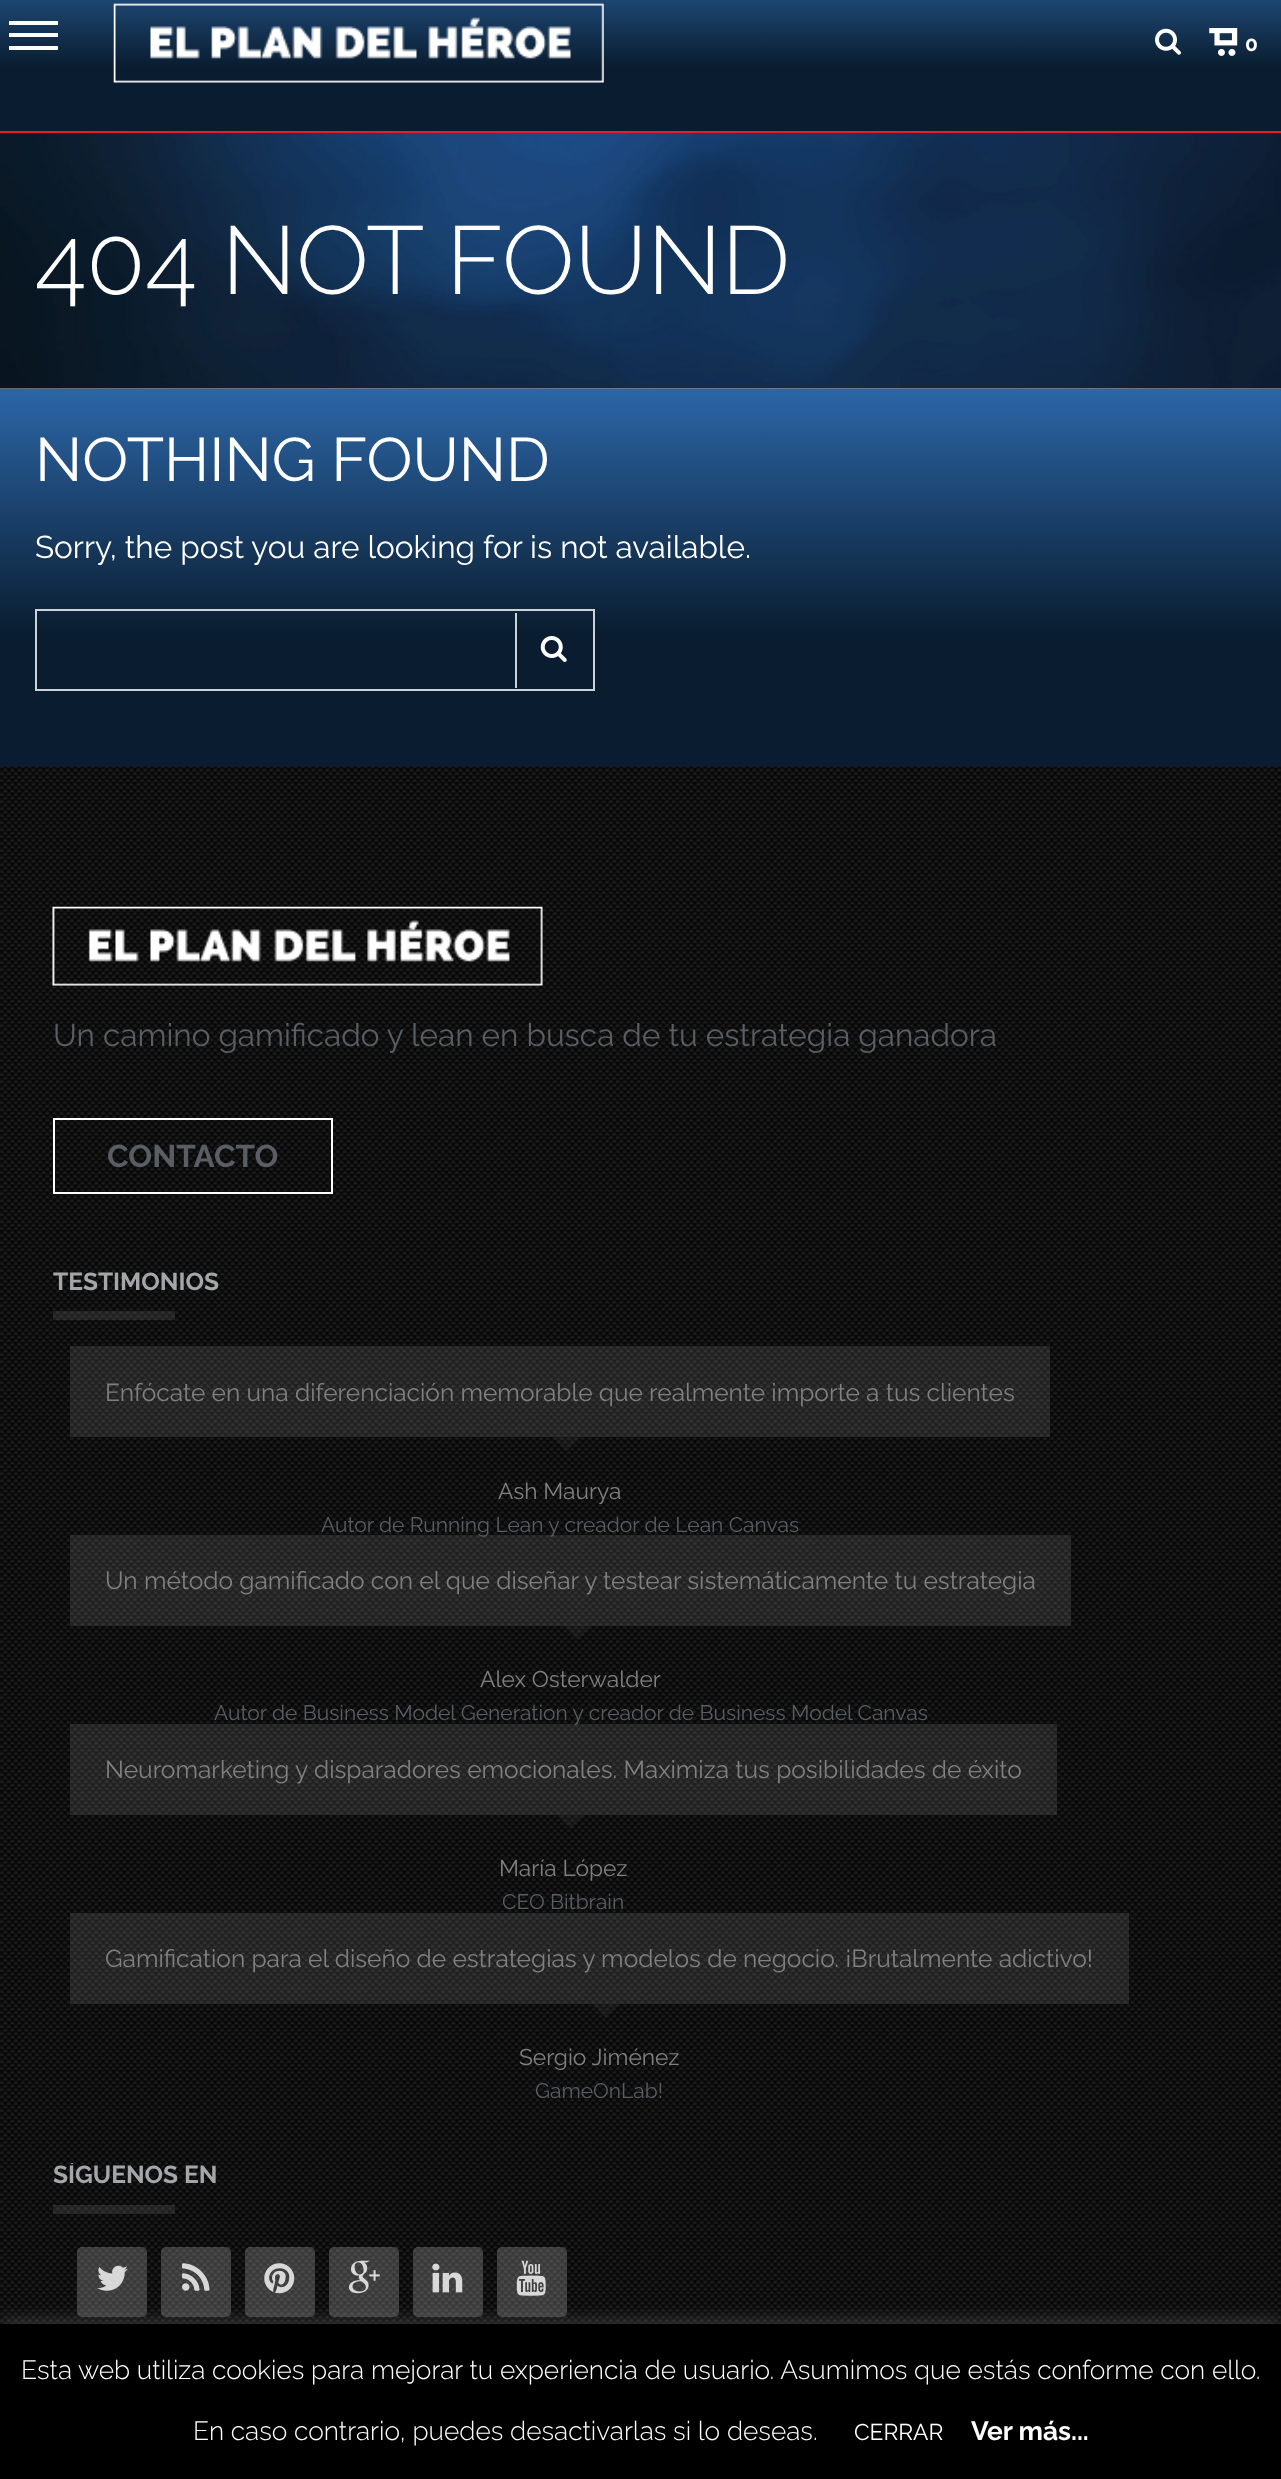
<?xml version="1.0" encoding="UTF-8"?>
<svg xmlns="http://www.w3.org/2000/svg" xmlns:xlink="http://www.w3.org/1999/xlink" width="1281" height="2479">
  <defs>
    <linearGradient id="g1" gradientUnits="userSpaceOnUse" x1="641" y1="-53" x2="641" y2="131"><stop offset="0" stop-color="#2c66a7" /><stop offset="0.65" stop-color="#0a1d30" /></linearGradient>
    <linearGradient id="g2" gradientUnits="userSpaceOnUse" x1="641" y1="388" x2="641" y2="767"><stop offset="0" stop-color="#2c66a7" /><stop offset="0.65" stop-color="#0a1d30" /></linearGradient>
    <linearGradient id="g3" gradientUnits="userSpaceOnUse" x1="641" y1="388" x2="641" y2="767"><stop offset="0" stop-color="#d5e0ed" /><stop offset="0.65" stop-color="#ced2d6" /></linearGradient>
    <clipPath id="clip1"><rect x="53" y="1269" width="1176" height="833" /></clipPath>
    <clipPath id="clip2"><rect x="53" y="2163" width="1176" height="161" /></clipPath>
  </defs>
  <rect width="100%" height="100%" fill="#fafafa" />
  <rect width="1281" height="131" fill="url(#g1)" />
  <rect y="131" width="1281" height="2" fill="#ed1c24" />
  <rect x="9" y="21" width="49" height="4" fill="#ffffff" />
  <rect x="9" y="33" width="49" height="4" fill="#ffffff" />
  <rect x="9" y="46" width="49" height="4" fill="#ffffff" />
  <image x="113" y="3" width="491" height="80" xlink:href="image1.png" />
  <image x="1155" y="28" width="26" height="27" xlink:href="image2.png" />
  <image x="1209" y="28" width="29" height="28" xlink:href="image3.png" />
  <image x="0" y="133" width="1281" height="256" xlink:href="image4.png" />
  <rect y="389" width="1281" height="378" fill="url(#g2)" />
  <rect x="515" y="613" width="2" height="75" fill="url(#g3)" />
  <rect x="36" y="610" width="558" height="80" fill="none" stroke="#ffffff" stroke-opacity="0.8" stroke-width="2" />
  <image x="540" y="636" width="27" height="26" xlink:href="image5.png" />
  <image x="0" y="766" width="1281" height="1558" xlink:href="image6.png" />
  <image x="52" y="906" width="491" height="80" xlink:href="image7.png" />
  <rect x="54" y="1119" width="278" height="74" fill="none" stroke="#ffffff" stroke-width="2" />
  <rect x="53" y="1311" width="122" height="9" fill="#808080" fill-opacity="0.2" />
  <rect x="70" y="1346" width="980" height="91" fill="#ffffff" fill-opacity="0.1" />
  <path d="M 553 1437 h 28 l -14 14 z" fill="#808080" fill-opacity="0.1" />
  <rect x="70" y="1535" width="1001" height="91" fill="#ffffff" fill-opacity="0.1" />
  <path d="M 563.5 1626 h 28 l -14 14 z" fill="#808080" fill-opacity="0.1" />
  <rect x="70" y="1724" width="987" height="91" fill="#ffffff" fill-opacity="0.1" />
  <path d="M 556.5 1815 h 28 l -14 14 z" fill="#808080" fill-opacity="0.1" />
  <rect x="70" y="1913" width="1059" height="91" fill="#ffffff" fill-opacity="0.1" />
  <path d="M 591.5 2004 h 28 l -14 14 z" fill="#808080" fill-opacity="0.1" />
  <rect x="53" y="2205" width="122" height="9" fill="#808080" fill-opacity="0.2" />
  <rect x="77" y="2247" width="70" height="70" rx="5" fill="#ffffff" fill-opacity="0.2" />
  <image x="97" y="2265" width="31" height="26" xlink:href="image8.png" />
  <rect x="161" y="2247" width="70" height="70" rx="5" fill="#ffffff" fill-opacity="0.2" />
  <image x="182" y="2263" width="28" height="28" xlink:href="image9.png" />
  <rect x="245" y="2247" width="70" height="70" rx="5" fill="#ffffff" fill-opacity="0.2" />
  <image x="264" y="2263" width="31" height="31" xlink:href="image10.png" />
  <rect x="329" y="2247" width="70" height="70" rx="5" fill="#ffffff" fill-opacity="0.2" />
  <image x="348" y="2260" width="32" height="34" xlink:href="image11.png" />
  <rect x="413" y="2247" width="70" height="70" rx="5" fill="#ffffff" fill-opacity="0.2" />
  <image x="432" y="2263" width="31" height="30" xlink:href="image12.png" />
  <rect x="497" y="2247" width="70" height="70" rx="5" fill="#ffffff" fill-opacity="0.2" />
  <image x="516" y="2260" width="30" height="36" xlink:href="image13.png" />
  <rect y="2322" width="1281" height="156" fill="#acabab" fill-opacity="0.3" filter="blur(9px)" />
  <rect y="2324" width="1281" height="155" fill="#000000" />
  <text x="1245" y="51" style="font-family: Raleway; font-size: 21px; font-weight: bold; fill: #ffffff">0</text>
  <text x="35" y="294" style="font-family: Raleway; font-size: 96.25px; font-weight: 300; fill: #ffffff">404 NOT FOUND</text>
  <text x="35" y="481" style="font-family: Raleway; font-size: 61.25px; fill: #ffffff">NOTHING FOUND</text>
  <text x="35" y="558" style="font-family: Raleway; font-size: 31.5px; fill: #ffffff">Sorry, the post you are looking for is not available.</text>
  <text x="53" y="1046" style="font-family: Raleway; font-size: 31.5px; fill: #595e65">Un camino gamificado y lean en busca de tu estrategia ganadora</text>
  <text x="107" y="1167" style="font-family: Raleway; font-size: 31.5px; font-weight: bold; fill: #595e65">CONTACTO</text>
  <g clip-path="url(#clip1)">
    <text x="53" y="1290" style="font-family: Raleway; font-size: 24.5px; font-weight: bold; fill: #a4a6a9">TESTIMONIOS</text>
  </g>
  <text x="105" y="1401" style="font-family: Raleway; font-size: 24.5px; fill: #808080">Enfócate en una diferenciación memorable que realmente importe a tus clientes</text>
  <text x="498" y="1499" style="font-family: Raleway; font-size: 22.75px; fill: #808080">Ash Maurya</text>
  <text x="321" y="1532" style="font-family: Raleway; font-size: 21px; fill: #595e65">Autor de Running Lean y creador de Lean Canvas</text>
  <text x="105" y="1589" style="font-family: Raleway; font-size: 24.5px; fill: #808080">Un método gamificado con el que diseñar y testear sistemáticamente tu estrategia</text>
  <text x="480" y="1687" style="font-family: Raleway; font-size: 22.75px; fill: #808080">Alex Osterwalder</text>
  <text x="214" y="1720" style="font-family: Raleway; font-size: 21px; fill: #595e65">Autor de Business Model Generation y creador de Business Model Canvas</text>
  <text x="105" y="1778" style="font-family: Raleway; font-size: 24.5px; fill: #808080">Neuromarketing y disparadores emocionales. Maximiza tus posibilidades de éxito</text>
  <text x="499" y="1876" style="font-family: Raleway; font-size: 22.75px; fill: #808080">María López</text>
  <text x="502" y="1909" style="font-family: Raleway; font-size: 21px; fill: #595e65">CEO Bitbrain</text>
  <text x="105" y="1967" style="font-family: Raleway; font-size: 24.5px; fill: #808080">Gamification para el diseño de estrategias y modelos de negocio. ¡Brutalmente adictivo!</text>
  <text x="519" y="2065" style="font-family: Raleway; font-size: 22.75px; fill: #808080">Sergio Jiménez</text>
  <text x="535" y="2098" style="font-family: Raleway; font-size: 21px; fill: #595e65">GameOnLab!</text>
  <g clip-path="url(#clip2)">
    <text x="53" y="2183" style="font-family: Raleway; font-size: 24.5px; font-weight: bold; fill: #a4a6a9">SÍGUENOS EN</text>
  </g>
  <text x="21" y="2379" style="font-family: Raleway; font-size: 26.25px; font-weight: 300; fill: #ffffff">Esta web utiliza cookies para mejorar tu experiencia de usuario. Asumimos que estás conforme con ello.</text>
  <text x="193" y="2440" style="font-family: Raleway; font-size: 26.25px; font-weight: 300; fill: #ffffff">En caso contrario, puedes desactivarlas si lo deseas.</text>
  <text x="854" y="2440" style="font-family: Raleway; font-size: 22.75px; fill: #ffffff">CERRAR</text>
  <text x="971" y="2440" style="font-family: Raleway; font-size: 26.25px; font-weight: bold; fill: #ffffff">Ver más...</text>
</svg>
